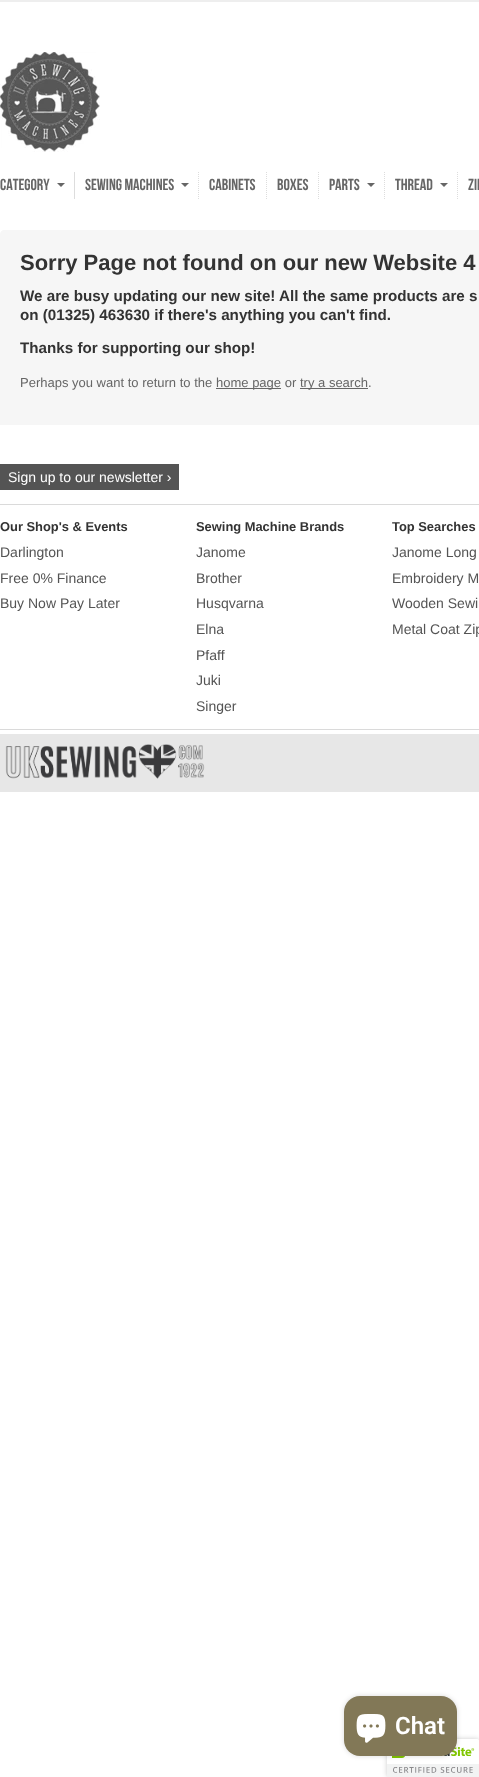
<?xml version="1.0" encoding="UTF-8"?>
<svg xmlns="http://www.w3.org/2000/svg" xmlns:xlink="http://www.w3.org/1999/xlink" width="479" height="1777">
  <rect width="100%" height="100%" fill="#ffffff" />
  <rect width="479" height="2" fill="#eeeeee" />
  <image x="0" y="52" width="100" height="100" xlink:href="image1.png" />
  <rect x="74" y="172" width="1" height="27" fill="#dddddd" />
  <path d="M 57 183 h 8 l -4 4 z" fill="#666666" />
  <path d="M 198.5 172 v 27" fill="none" stroke="#dddddd" stroke-dasharray="1 1" />
  <path d="M 181 183 h 8 l -4 4 z" fill="#666666" />
  <path d="M 266.5 172 v 27" fill="none" stroke="#dddddd" stroke-dasharray="1 1" />
  <path d="M 318.5 172 v 27" fill="none" stroke="#dddddd" stroke-dasharray="1 1" />
  <path d="M 384.5 172 v 27" fill="none" stroke="#dddddd" stroke-dasharray="1 1" />
  <path d="M 367 183 h 8 l -4 4 z" fill="#666666" />
  <path d="M 457.5 172 v 27" fill="none" stroke="#dddddd" stroke-dasharray="1 1" />
  <path d="M 440 183 h 8 l -4 4 z" fill="#666666" />
  <path d="M 4 230 h 475 c 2 0 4 2 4 4 v 191 h -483 v -191 c 0 -2 2 -4 4 -4 z" fill="#f6f6f6" />
  <rect x="216" y="388" width="65" height="1" fill="#666666" />
  <rect x="300" y="388" width="68" height="1" fill="#666666" />
  <rect y="504" width="479" height="1" fill="#dadada" />
  <rect y="464" width="179" height="26" fill="#545454" />
  <rect y="729" width="479" height="1" fill="#dadada" />
  <rect y="734" width="479" height="58" fill="#e7e7e7" />
  <image x="5" y="744" width="200" height="35" xlink:href="image2.png" />
  <rect x="387" y="1739" width="92" height="38" rx="2" fill="#000000" fill-opacity="0.2" filter="blur(2.5px)" />
  <rect x="477" y="1739" width="2" height="2" fill="#ffffff" />
  <image x="387" y="1739" width="92" height="38" xlink:href="image4.png" />
  <rect x="344" y="1696" width="113" height="60" rx="16" fill="#000000" fill-opacity="0.15" filter="blur(2.5px)" />
  <rect x="344" y="1696" width="113" height="60" rx="16" fill="#827857" />
  <image x="356" y="1714" width="30" height="29" xlink:href="image3.png" />
  <text x="0" y="190" style="font-family: Bebas Neue; font-size: 16px; fill: #666666">Category</text>
  <text x="85" y="190" style="font-family: Bebas Neue; font-size: 16px; fill: #666666">Sewing Machines</text>
  <text x="209" y="190" style="font-family: Bebas Neue; font-size: 16px; fill: #666666">Cabinets</text>
  <text x="277" y="190" style="font-family: Bebas Neue; font-size: 16px; fill: #666666">Boxes</text>
  <text x="329" y="190" style="font-family: Bebas Neue; font-size: 16px; fill: #666666">Parts</text>
  <text x="395" y="190" style="font-family: Bebas Neue; font-size: 16px; fill: #666666">Thread</text>
  <text x="468" y="190" style="font-family: Bebas Neue; font-size: 16px; fill: #666666">Zip</text>
  <text x="20" y="270" style="font-family: Liberation Sans; font-size: 22px; font-weight: bold; fill: #333333">Sorry Page not found on our new Website 4</text>
  <text x="20" y="301" style="font-family: Liberation Sans; font-size: 15.2px; font-weight: bold; fill: #333333">We are busy updating our new site! All the same products are s</text>
  <text x="20" y="320" style="font-family: Liberation Sans; font-size: 15.2px; font-weight: bold; fill: #333333">on (01325) 463630 if there's anything you can't find.</text>
  <text x="20" y="353" style="font-family: Liberation Sans; font-size: 15.2px; font-weight: bold; fill: #333333">Thanks for supporting our shop!</text>
  <text x="20" y="387" style="font-family: Liberation Sans; font-size: 13px; fill: #666666">Perhaps you want to return to the</text>
  <text x="216" y="387" style="font-family: Liberation Sans; font-size: 13px; fill: #666666">home page or</text>
  <text x="300" y="387" style="font-family: Liberation Sans; font-size: 13px; fill: #666666">try a search.</text>
  <text x="8" y="482" style="font-family: Liberation Sans; font-size: 14px; fill: #ffffff">Sign up to our newsletter ›</text>
  <text x="0" y="531" style="font-family: Liberation Sans; font-size: 12.9px; font-weight: bold; fill: #333333">Our Shop's &amp; Events</text>
  <text x="0" y="557" style="font-family: Liberation Sans; font-size: 14px; fill: #545454">Darlington</text>
  <text x="0" y="583" style="font-family: Liberation Sans; font-size: 14px; fill: #545454">Free 0% Finance</text>
  <text x="0" y="608" style="font-family: Liberation Sans; font-size: 14px; fill: #545454">Buy Now Pay Later</text>
  <text x="196" y="531" style="font-family: Liberation Sans; font-size: 12.9px; font-weight: bold; fill: #333333">Sewing Machine Brands</text>
  <text x="196" y="557" style="font-family: Liberation Sans; font-size: 14px; fill: #545454">Janome</text>
  <text x="196" y="583" style="font-family: Liberation Sans; font-size: 14px; fill: #545454">Brother</text>
  <text x="196" y="608" style="font-family: Liberation Sans; font-size: 14px; fill: #545454">Husqvarna</text>
  <text x="196" y="634" style="font-family: Liberation Sans; font-size: 14px; fill: #545454">Elna</text>
  <text x="196" y="660" style="font-family: Liberation Sans; font-size: 14px; fill: #545454">Pfaff</text>
  <text x="196" y="685" style="font-family: Liberation Sans; font-size: 14px; fill: #545454">Juki</text>
  <text x="196" y="711" style="font-family: Liberation Sans; font-size: 14px; fill: #545454">Singer</text>
  <text x="392" y="531" style="font-family: Liberation Sans; font-size: 12.9px; font-weight: bold; fill: #333333">Top Searches</text>
  <text x="392" y="557" style="font-family: Liberation Sans; font-size: 14px; fill: #545454">Janome Long</text>
  <text x="392" y="583" style="font-family: Liberation Sans; font-size: 14px; fill: #545454">Embroidery M</text>
  <text x="392" y="608" style="font-family: Liberation Sans; font-size: 14px; fill: #545454">Wooden Sewi</text>
  <text x="392" y="634" style="font-family: Liberation Sans; font-size: 14px; fill: #545454">Metal Coat Zip</text>
  <text x="395" y="1734" style="font-family: Roboto; font-size: 24px; font-weight: 600; fill: #ffffff">Chat</text>
</svg>
